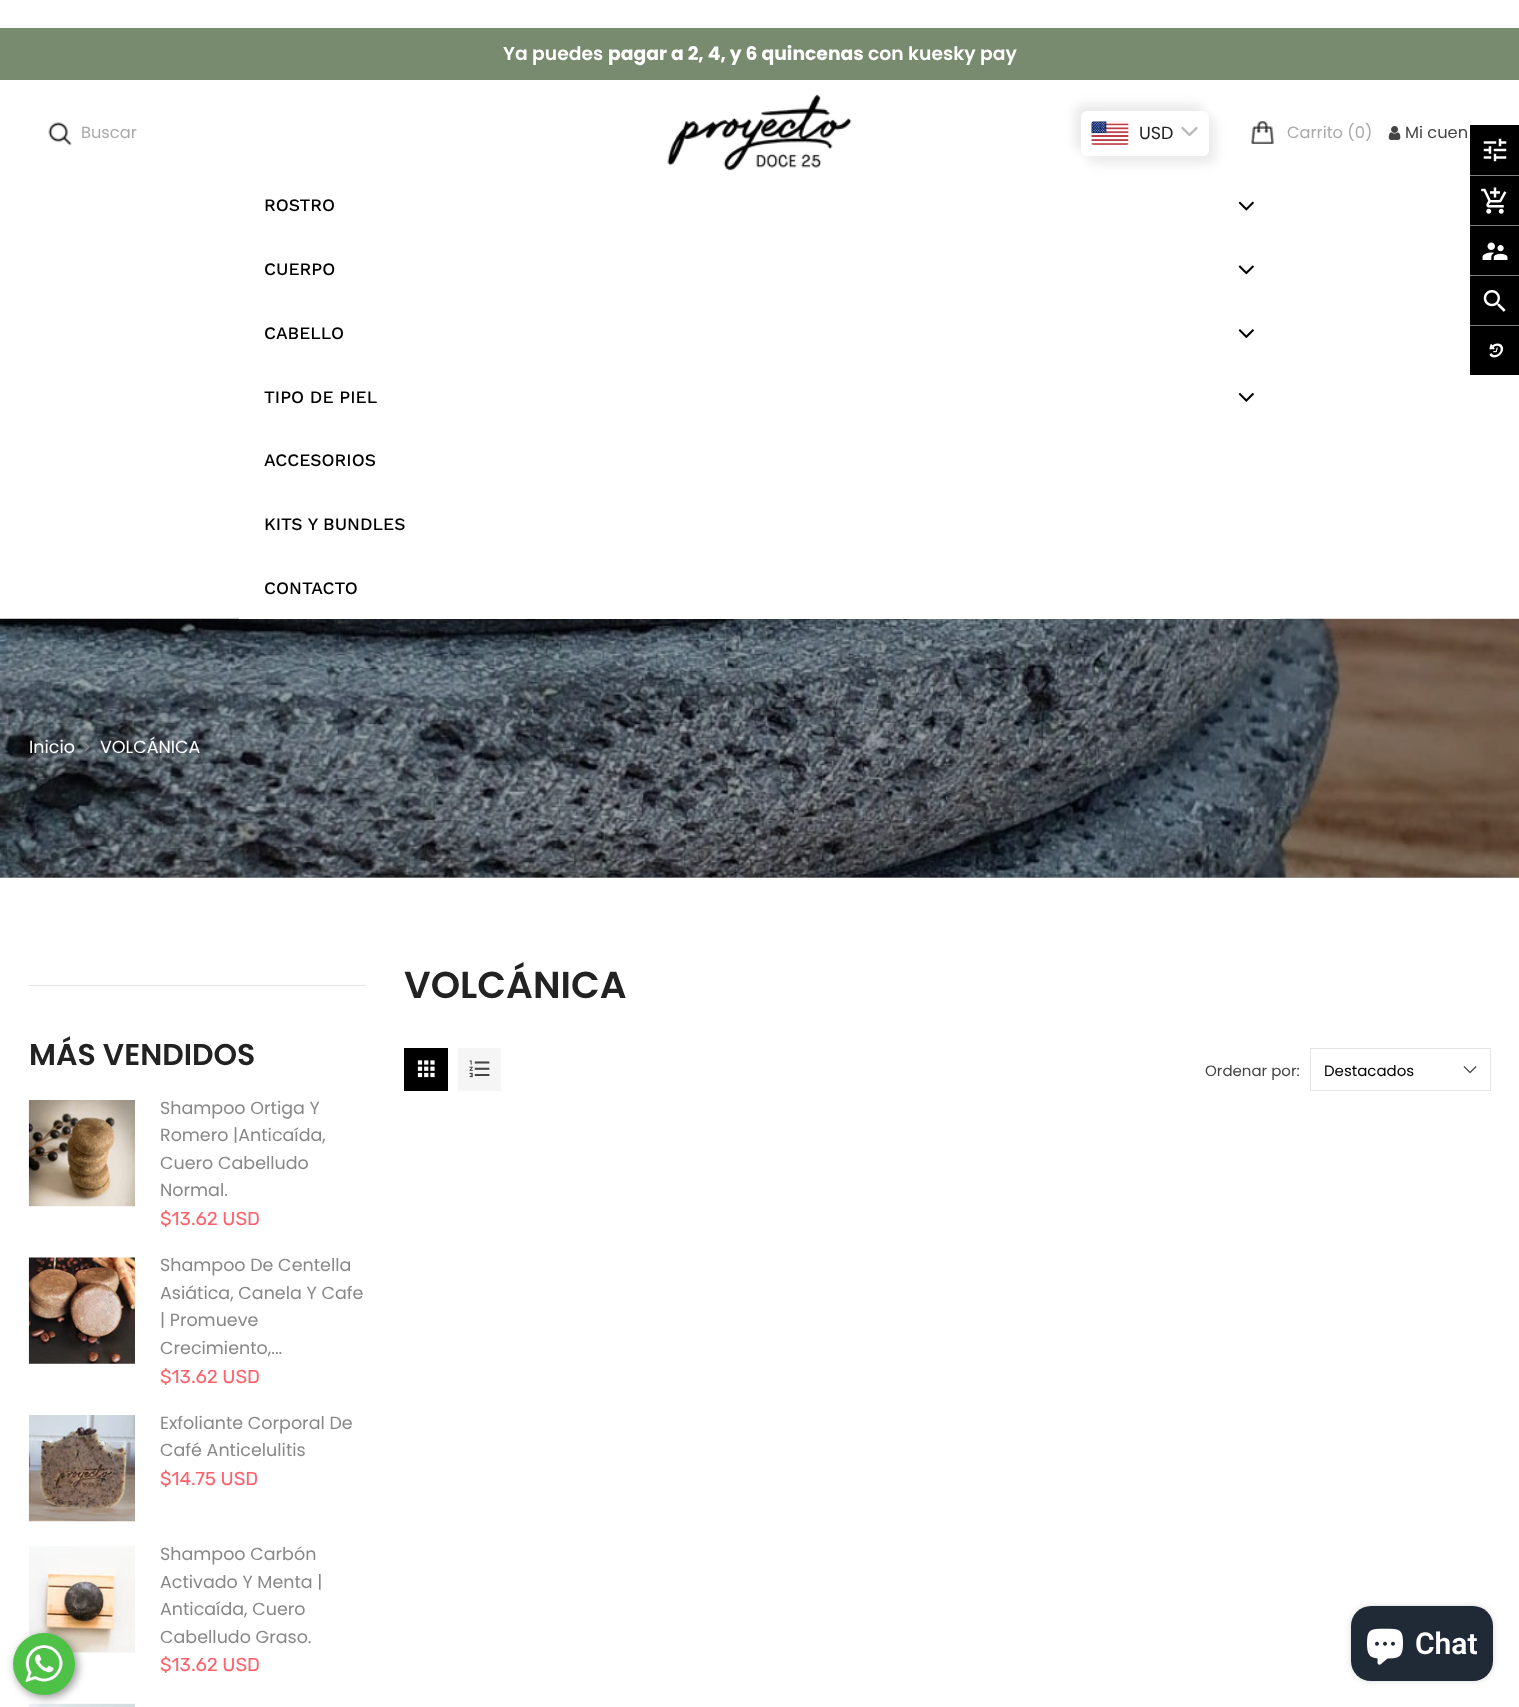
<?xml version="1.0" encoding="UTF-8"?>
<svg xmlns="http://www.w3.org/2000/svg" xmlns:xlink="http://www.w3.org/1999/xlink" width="1519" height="1707">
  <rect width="100%" height="100%" fill="#ffffff" />
  <rect y="877" width="1519" height="1" fill="#a6a6a6" />
  <rect y="28" width="1519" height="52" fill="#788b6f" />
  <image x="48" y="122" width="24" height="24" xlink:href="image1.png" />
  <image x="667" y="94" width="185" height="77" xlink:href="image2.png" />
  <rect x="1075" y="105" width="128" height="45" rx="6" fill="#e8e8e8" filter="blur(6px)" />
  <rect x="1088" y="118" width="127" height="45" rx="6" fill="#e8e8e8" filter="blur(6px)" />
  <rect x="1081" y="111" width="128" height="45" rx="6" fill="#ffffff" />
  <image x="1091" y="121" width="38" height="24" xlink:href="image3.png" />
  <path d="M 1182.5 128 l 7 7 l 7 -7" fill="none" stroke="#b7b7b7" stroke-width="2.3" stroke-linecap="round" stroke-linejoin="round" />
  <image x="1251" y="121" width="23" height="23" xlink:href="image4.png" />
  <image x="1388" y="126" width="13" height="14" xlink:href="image5.png" />
  <image x="0" y="618" width="1519" height="260" xlink:href="image15.png" />
  <rect x="239" y="618" width="1042" height="1" fill="#ffffff" />
  <image x="1238" y="201" width="16" height="10" xlink:href="image6.png" />
  <image x="1238" y="265" width="16" height="10" xlink:href="image7.png" />
  <image x="1238" y="329" width="16" height="9" xlink:href="image8.png" />
  <image x="1238" y="392" width="16" height="10" xlink:href="image9.png" />
  <rect x="1470" y="125" width="49" height="50" fill="#000000" />
  <image x="1483" y="138" width="24" height="24" xlink:href="image10.png" />
  <rect x="1470" y="176" width="49" height="49" fill="#000000" />
  <rect x="1470" y="175" width="49" height="1" fill="#808080" />
  <image x="1481" y="187" width="26" height="27" xlink:href="image11.png" />
  <rect x="1470" y="226" width="49" height="49" fill="#000000" />
  <rect x="1470" y="225" width="49" height="1" fill="#808080" />
  <image x="1482" y="242" width="26" height="18" xlink:href="image12.png" />
  <rect x="1470" y="276" width="49" height="49" fill="#000000" />
  <rect x="1470" y="275" width="49" height="1" fill="#808080" />
  <image x="1483" y="290" width="23" height="22" xlink:href="image13.png" />
  <rect x="1470" y="326" width="49" height="49" fill="#000000" />
  <rect x="1470" y="325" width="49" height="1" fill="#808080" />
  <image x="1489" y="343" width="15" height="15" xlink:href="image14.png" />
  <path d="M 85.5 742.5 l 4 4.5 l -0.5 1 l -4.5 -4.5 z" fill="#888888" />
  <path d="M 89 746 l 0.5 1 l -4 4.5 l -1 -1 z" fill="#888888" />
  <rect x="404" y="1048" width="44" height="43" fill="#000000" />
  <image x="417" y="1060" width="18" height="18" xlink:href="image16.png" />
  <rect x="458" y="1048" width="43" height="43" fill="#f5f5f5" />
  <image x="469" y="1060" width="21" height="18" xlink:href="image17.png" />
  <image x="1463" y="1066" width="14" height="8" xlink:href="image18.png" />
  <rect x="1310.5" y="1048.5" width="180" height="42" fill="none" stroke="#e5e5e5" />
  <rect x="29" y="985" width="337" height="1" fill="#e5e5e5" />
  <image x="28" y="1100" width="107" height="107" xlink:href="image19.png" />
  <image x="28" y="1257" width="107" height="107" xlink:href="image20.png" />
  <image x="28" y="1415" width="107" height="107" xlink:href="image21.png" />
  <image x="29" y="1546" width="106" height="107" xlink:href="image22.png" />
  <image x="29" y="1703" width="106" height="4" xlink:href="image23.png" />
  <rect x="15" y="1635" width="63" height="63" rx="31.5" fill="#000000" fill-opacity="0.4" filter="blur(4px)" />
  <circle cx="44" cy="1664" r="31" fill="#4dc247" />
  <image x="25" y="1645" width="38" height="37" xlink:href="image24.png" />
  <rect x="1351" y="1606" width="142" height="75" rx="20" fill="#000000" fill-opacity="0.15" filter="blur(3px)" />
  <rect x="1351" y="1606" width="142" height="75" rx="20" fill="#202a36" />
  <image x="1367" y="1628" width="36" height="37" xlink:href="image25.png" />
  <text x="503" y="60" style="font-family: Poppins; font-size: 18.75px; font-weight: 600; fill: #ffffff">Ya puedes</text>
  <text x="608" y="60" style="font-family: Poppins; font-size: 18.75px; font-weight: bold; fill: #ffffff">pagar a 2, 4, y 6 quincenas</text>
  <text x="868" y="60" style="font-family: Poppins; font-size: 18.75px; font-weight: 600; fill: #ffffff">con kuesky pay</text>
  <text x="81" y="138" style="font-family: Poppins; font-size: 16.25px; fill: #aaaaaa">Buscar</text>
  <text x="1139" y="139" style="font-family: Poppins; font-size: 17.5px; fill: #222222">USD</text>
  <text x="1287" y="138" style="font-family: Poppins; font-size: 16.25px; fill: #aaaaaa">Carrito (0)</text>
  <text x="1405" y="138" style="font-family: Poppins; font-size: 16.25px; fill: #444444">Mi cuen</text>
  <text x="264" y="211" style="font-family: Work Sans; font-size: 17.5px; font-weight: 500; fill: #000000">ROSTRO</text>
  <text x="264" y="275" style="font-family: Work Sans; font-size: 17.5px; font-weight: 500; fill: #000000">CUERPO</text>
  <text x="264" y="339" style="font-family: Work Sans; font-size: 17.5px; font-weight: 500; fill: #000000">CABELLO</text>
  <text x="264" y="403" style="font-family: Work Sans; font-size: 17.5px; font-weight: 500; fill: #000000">TIPO DE PIEL</text>
  <text x="264" y="466" style="font-family: Work Sans; font-size: 17.5px; font-weight: 500; fill: #000000">ACCESORIOS</text>
  <text x="264" y="530" style="font-family: Work Sans; font-size: 17.5px; font-weight: 500; fill: #000000">KITS Y BUNDLES</text>
  <text x="264" y="594" style="font-family: Work Sans; font-size: 17.5px; font-weight: 500; fill: #000000">CONTACTO</text>
  <text x="29" y="753" style="font-family: Poppins; font-size: 17.5px; fill: #ffffff">Inicio</text>
  <text x="100" y="753" style="font-family: Poppins; font-size: 17.5px; fill: #ffffff">VOLCÁNICA</text>
  <text x="404" y="998" style="font-family: Poppins; font-size: 37.5px; font-weight: 600; fill: #222222">VOLCÁNICA</text>
  <text x="1205" y="1076" style="font-family: Poppins; font-size: 15px; fill: #444444">Ordenar por:</text>
  <text x="1324" y="1076" style="font-family: Poppins; font-size: 15px; fill: #000000">Destacados</text>
  <text x="29" y="1065" style="font-family: Poppins; font-size: 30px; font-weight: 600; fill: #222222">MÁS VENDIDOS</text>
  <text x="160" y="1114" style="font-family: Poppins; font-size: 17.5px; fill: #888888">Shampoo Ortiga Y</text>
  <text x="160" y="1141" style="font-family: Poppins; font-size: 17.5px; fill: #888888">Romero |Anticaída,</text>
  <text x="160" y="1169" style="font-family: Poppins; font-size: 17.5px; fill: #888888">Cuero Cabelludo</text>
  <text x="160" y="1196" style="font-family: Poppins; font-size: 17.5px; fill: #888888">Normal.</text>
  <text x="160" y="1225" style="font-family: Rubik; font-size: 18.75px; fill: #ff616b">$13.62 USD</text>
  <text x="160" y="1271" style="font-family: Poppins; font-size: 17.5px; fill: #888888">Shampoo De Centella</text>
  <text x="160" y="1299" style="font-family: Poppins; font-size: 17.5px; fill: #888888">Asiática, Canela Y Cafe</text>
  <text x="160" y="1326" style="font-family: Poppins; font-size: 17.5px; fill: #888888">| Promueve</text>
  <text x="160" y="1354" style="font-family: Poppins; font-size: 17.5px; fill: #888888">Crecimiento,...</text>
  <text x="160" y="1383" style="font-family: Rubik; font-size: 18.75px; fill: #ff616b">$13.62 USD</text>
  <text x="160" y="1429" style="font-family: Poppins; font-size: 17.5px; fill: #888888">Exfoliante Corporal De</text>
  <text x="160" y="1456" style="font-family: Poppins; font-size: 17.5px; fill: #888888">Café Anticelulitis</text>
  <text x="160" y="1485" style="font-family: Rubik; font-size: 18.75px; fill: #ff616b">$14.75 USD</text>
  <text x="160" y="1560" style="font-family: Poppins; font-size: 17.5px; fill: #888888">Shampoo Carbón</text>
  <text x="160" y="1588" style="font-family: Poppins; font-size: 17.5px; fill: #888888">Activado Y Menta |</text>
  <text x="160" y="1615" style="font-family: Poppins; font-size: 17.5px; fill: #888888">Anticaída, Cuero</text>
  <text x="160" y="1643" style="font-family: Poppins; font-size: 17.5px; fill: #888888">Cabelludo Graso.</text>
  <text x="160" y="1671" style="font-family: Rubik; font-size: 18.75px; fill: #ff616b">$13.62 USD</text>
  <text x="1415" y="1654" style="font-family: Roboto; font-size: 30px; font-weight: 600; fill: #ffffff">Chat</text>
</svg>
